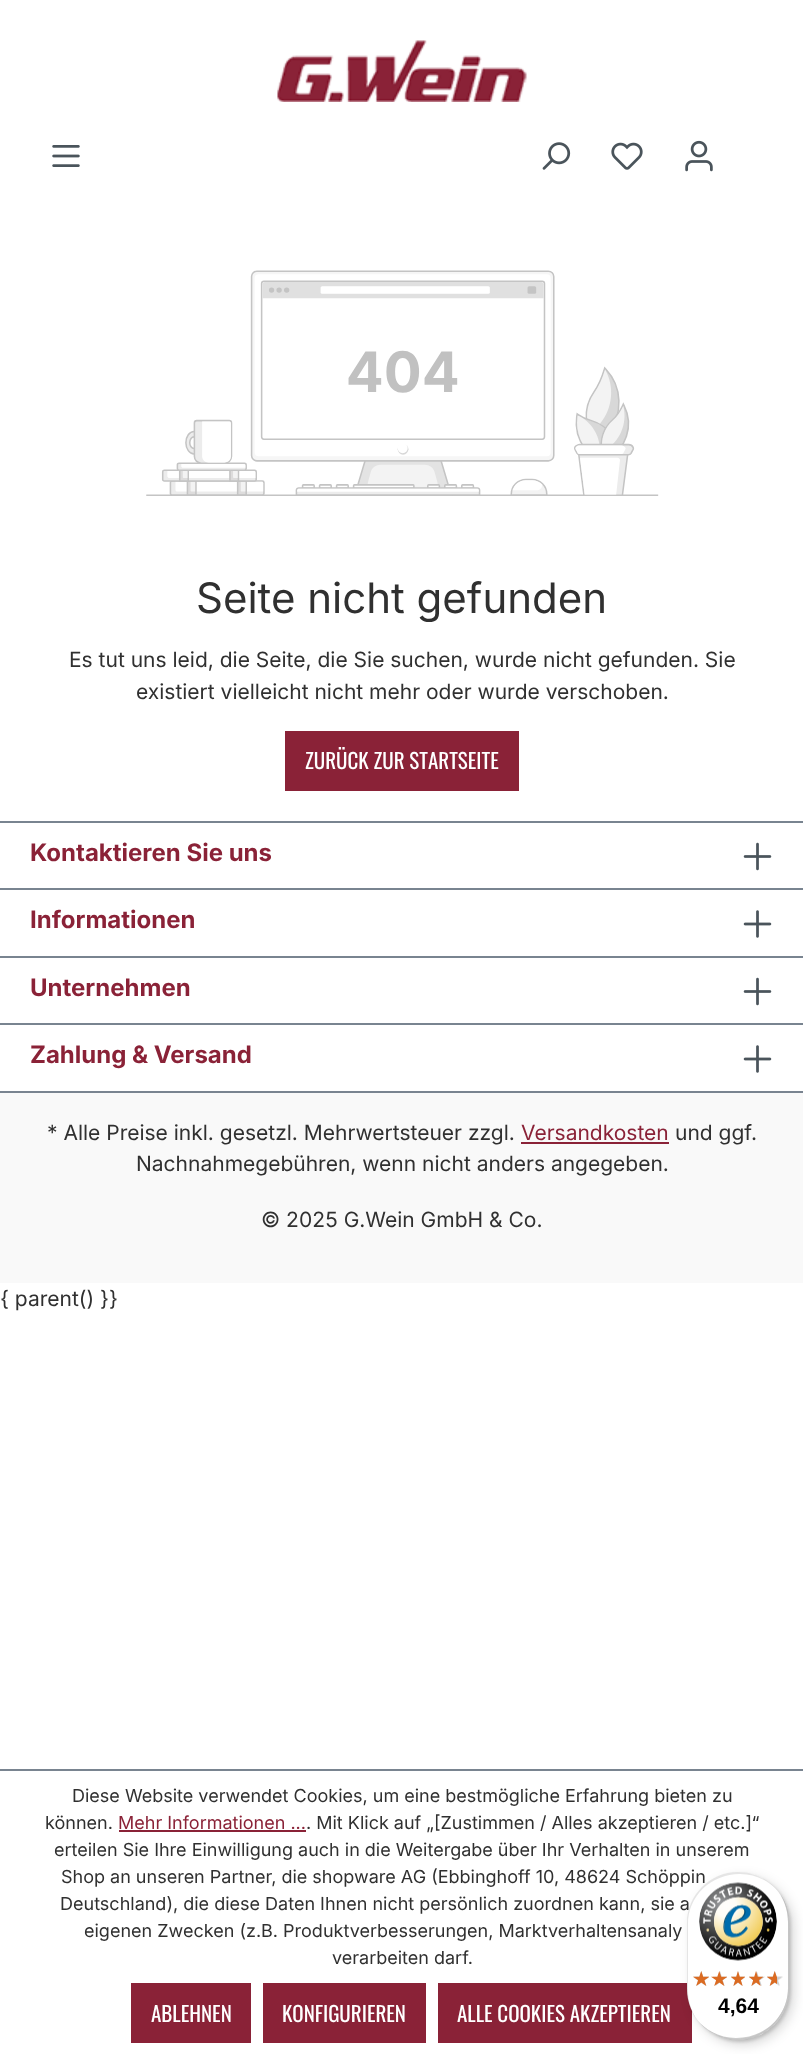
<?xml version="1.0" encoding="UTF-8"?>
<svg xmlns="http://www.w3.org/2000/svg" xmlns:xlink="http://www.w3.org/1999/xlink" width="803" height="2054">
  <rect width="100%" height="100%" fill="#ffffff" />
  <image x="277" y="40" width="250" height="62" xlink:href="image1.png" />
  <image x="52" y="145" width="28" height="22" xlink:href="image2.png" />
  <image x="542" y="142" width="29" height="28" xlink:href="image3.png" />
  <image x="611" y="142" width="32" height="28" xlink:href="image4.png" />
  <image x="685" y="140" width="28" height="32" xlink:href="image5.png" />
  <image x="146" y="270" width="513" height="226" xlink:href="image6.png" />
  <rect x="285" y="731" width="234" height="60" fill="#8a2237" />
  <rect y="821" width="803" height="2" fill="#798490" />
  <rect y="888" width="803" height="2" fill="#798490" />
  <image x="743" y="842" width="29" height="29" xlink:href="image7.png" />
  <rect y="956" width="803" height="2" fill="#798490" />
  <image x="743" y="910" width="29" height="28" xlink:href="image8.png" />
  <rect y="1023" width="803" height="2" fill="#798490" />
  <image x="743" y="977" width="29" height="29" xlink:href="image7.png" />
  <rect y="1091" width="803" height="2" fill="#798490" />
  <image x="743" y="1045" width="29" height="28" xlink:href="image8.png" />
  <rect y="1093" width="803" height="190" fill="#f9f9f9" />
  <rect x="521" y="1142" width="148" height="2" fill="#8a2237" />
  <rect y="1769" width="803" height="2" fill="#798490" />
  <rect x="119" y="1830" width="187" height="2" fill="#8a2237" />
  <rect x="131" y="1983" width="120" height="60" fill="#8a2237" />
  <rect x="263" y="1983" width="163" height="60" fill="#8a2237" />
  <rect x="438" y="1983" width="254" height="60" fill="#8a2237" />
  <rect x="692" y="1877" width="102" height="168" rx="51" fill="#000000" fill-opacity="0.15" filter="blur(6px)" />
  <rect x="689" y="1874" width="102" height="168" rx="51" fill="#000000" fill-opacity="0.15" filter="blur(1.5px)" />
  <text x="196" y="613" style="font-family: Inter; font-size: 42px; fill: #303030">Seite nicht gefunden</text>
  <text x="69" y="667" style="font-family: Inter; font-size: 21px; fill: #303030">Es tut uns leid, die Seite, die Sie suchen, wurde nicht gefunden. Sie</text>
  <text x="136" y="699" style="font-family: Inter; font-size: 21px; fill: #303030">existiert vielleicht nicht mehr oder wurde verschoben.</text>
  <text x="305" y="769" style="font-family: Oswald; font-size: 21px; fill: #ffffff">ZURÜCK ZUR STARTSEITE</text>
  <text x="30" y="861" style="font-family: Inter; font-size: 24px; font-weight: bold; fill: #8a2237">Kontaktieren Sie uns</text>
  <text x="30" y="928" style="font-family: Inter; font-size: 24px; font-weight: bold; fill: #8a2237">Informationen</text>
  <text x="30" y="996" style="font-family: Inter; font-size: 24px; font-weight: bold; fill: #8a2237">Unternehmen</text>
  <text x="30" y="1063" style="font-family: Inter; font-size: 24px; font-weight: bold; fill: #8a2237">Zahlung &amp; Versand</text>
  <text x="47" y="1140" style="font-family: Inter; font-size: 21px; fill: #303030">* Alle Preise inkl. gesetzl. Mehrwertsteuer zzgl.</text>
  <text x="521" y="1140" style="font-family: Inter; font-size: 21px; fill: #8a2237">Versandkosten</text>
  <text x="675" y="1140" style="font-family: Inter; font-size: 21px; fill: #303030">und ggf.</text>
  <text x="136" y="1171" style="font-family: Inter; font-size: 21px; fill: #303030">Nachnahmegebühren, wenn nicht anders angegeben.</text>
  <text x="261" y="1227" style="font-family: Inter; font-size: 21px; fill: #303030">© 2025 G.Wein GmbH &amp; Co.</text>
  <text x="0" y="1306" style="font-family: Inter; font-size: 21px; fill: #303030">{ parent() }}</text>
  <text x="72" y="1802" style="font-family: Inter; font-size: 18px; fill: #303030">Diese Website verwendet Cookies, um eine bestmögliche Erfahrung bieten zu</text>
  <text x="45" y="1829" style="font-family: Inter; font-size: 18px; fill: #303030">können.</text>
  <text x="118" y="1829" style="font-family: Inter; font-size: 18px; fill: #8a2237">Mehr Informationen ...</text>
  <text x="306" y="1829" style="font-family: Inter; font-size: 18px; fill: #303030">. Mit Klick auf „[Zustimmen / Alles akzeptieren / etc.]“</text>
  <text x="54" y="1856" style="font-family: Inter; font-size: 18px; fill: #303030">erteilen Sie Ihre Einwilligung auch in die Weitergabe über Ihr Verhalten in unserem</text>
  <text x="61" y="1883" style="font-family: Inter; font-size: 18px; fill: #303030">Shop an unseren Partner, die shopware AG (Ebbinghoff 10, 48624 Schöppin</text>
  <text x="60" y="1910" style="font-family: Inter; font-size: 18px; fill: #303030">Deutschland), die diese Daten Ihnen nicht persönlich zuordnen kann, sie a</text>
  <text x="84" y="1937" style="font-family: Inter; font-size: 18px; fill: #303030">eigenen Zwecken (z.B. Produktverbesserungen, Marktverhaltensanaly</text>
  <text x="332" y="1964" style="font-family: Inter; font-size: 18px; fill: #303030">verarbeiten darf.</text>
  <text x="151" y="2022" style="font-family: Oswald; font-size: 21px; fill: #ffffff">ABLEHNEN</text>
  <text x="282" y="2022" style="font-family: Oswald; font-size: 21px; fill: #ffffff">KONFIGURIEREN</text>
  <text x="457" y="2022" style="font-family: Oswald; font-size: 21px; fill: #ffffff">ALLE COOKIES AKZEPTIEREN</text>
  <rect x="687" y="1872" width="102" height="168" rx="51" fill="#ffffff" />
  <path d="M 740 1874 c 14 0 27 6 36 15 c -9 -10 -23 -17 -38 -17 c -28 0 -51 23 -51 51 v 66 c 0 11 3 21 9 29 c -5 -8 -8 -18 -8 -28 v -66 c 0 -28 23 -50 52 -50 z" fill="#000000" fill-opacity="0.1" />
  <path d="M 700 2023 c 9 10 23 17 38 17 c 28 0 51 -23 51 -51 v -66 c 0 -11 -3 -21 -9 -29 c 5 8 8 18 8 28 v 66 c 0 28 -23 50 -52 50 c -14 0 -27 -6 -36 -15 z" fill="#000000" fill-opacity="0.2" />
  <path d="M 699 2022 c 10 11 24 18 39 18 c 28 0 51 -23 51 -51 v -66 c 0 -15 -7 -29 -18 -39 c 11 10 17 23 17 38 v 66 c 0 28 -23 51 -51 51 c -15 0 -28 -6 -38 -17 z" fill="#323232" fill-opacity="0.2" />
  <path d="M 699 2022 c 10 11 24 18 39 18 c 28 0 51 -23 51 -51 v -66 c 0 -15 -7 -29 -18 -39 c 11 10 17 23 17 38 v 66 c 0 28 -23 51 -51 51 c -15 0 -28 -6 -38 -17 z" fill="#ffffff" fill-opacity="0.3" />
  <image x="699" y="1882" width="78" height="79" xlink:href="image9.png" />
  <image x="693" y="1971" width="16" height="15" xlink:href="image10.png" />
  <image x="713" y="1971" width="14" height="15" xlink:href="image11.png" />
  <image x="731" y="1971" width="14" height="15" xlink:href="image12.png" />
  <image x="749" y="1971" width="16" height="15" xlink:href="image13.png" />
  <image x="767" y="1971" width="16" height="15" xlink:href="image14.png" />
  <image x="693" y="1971" width="16" height="15" xlink:href="image15.png" />
  <image x="711" y="1971" width="16" height="15" xlink:href="image16.png" />
  <image x="731" y="1971" width="14" height="15" xlink:href="image17.png" />
  <image x="749" y="1971" width="14" height="15" xlink:href="image18.png" />
  <image x="767" y="1971" width="10" height="15" xlink:href="image19.png" />
  <text x="718" y="2013" style="font-family: Liberation Sans; font-size: 21px; font-weight: bold; fill: #000000">4,64</text>
</svg>
